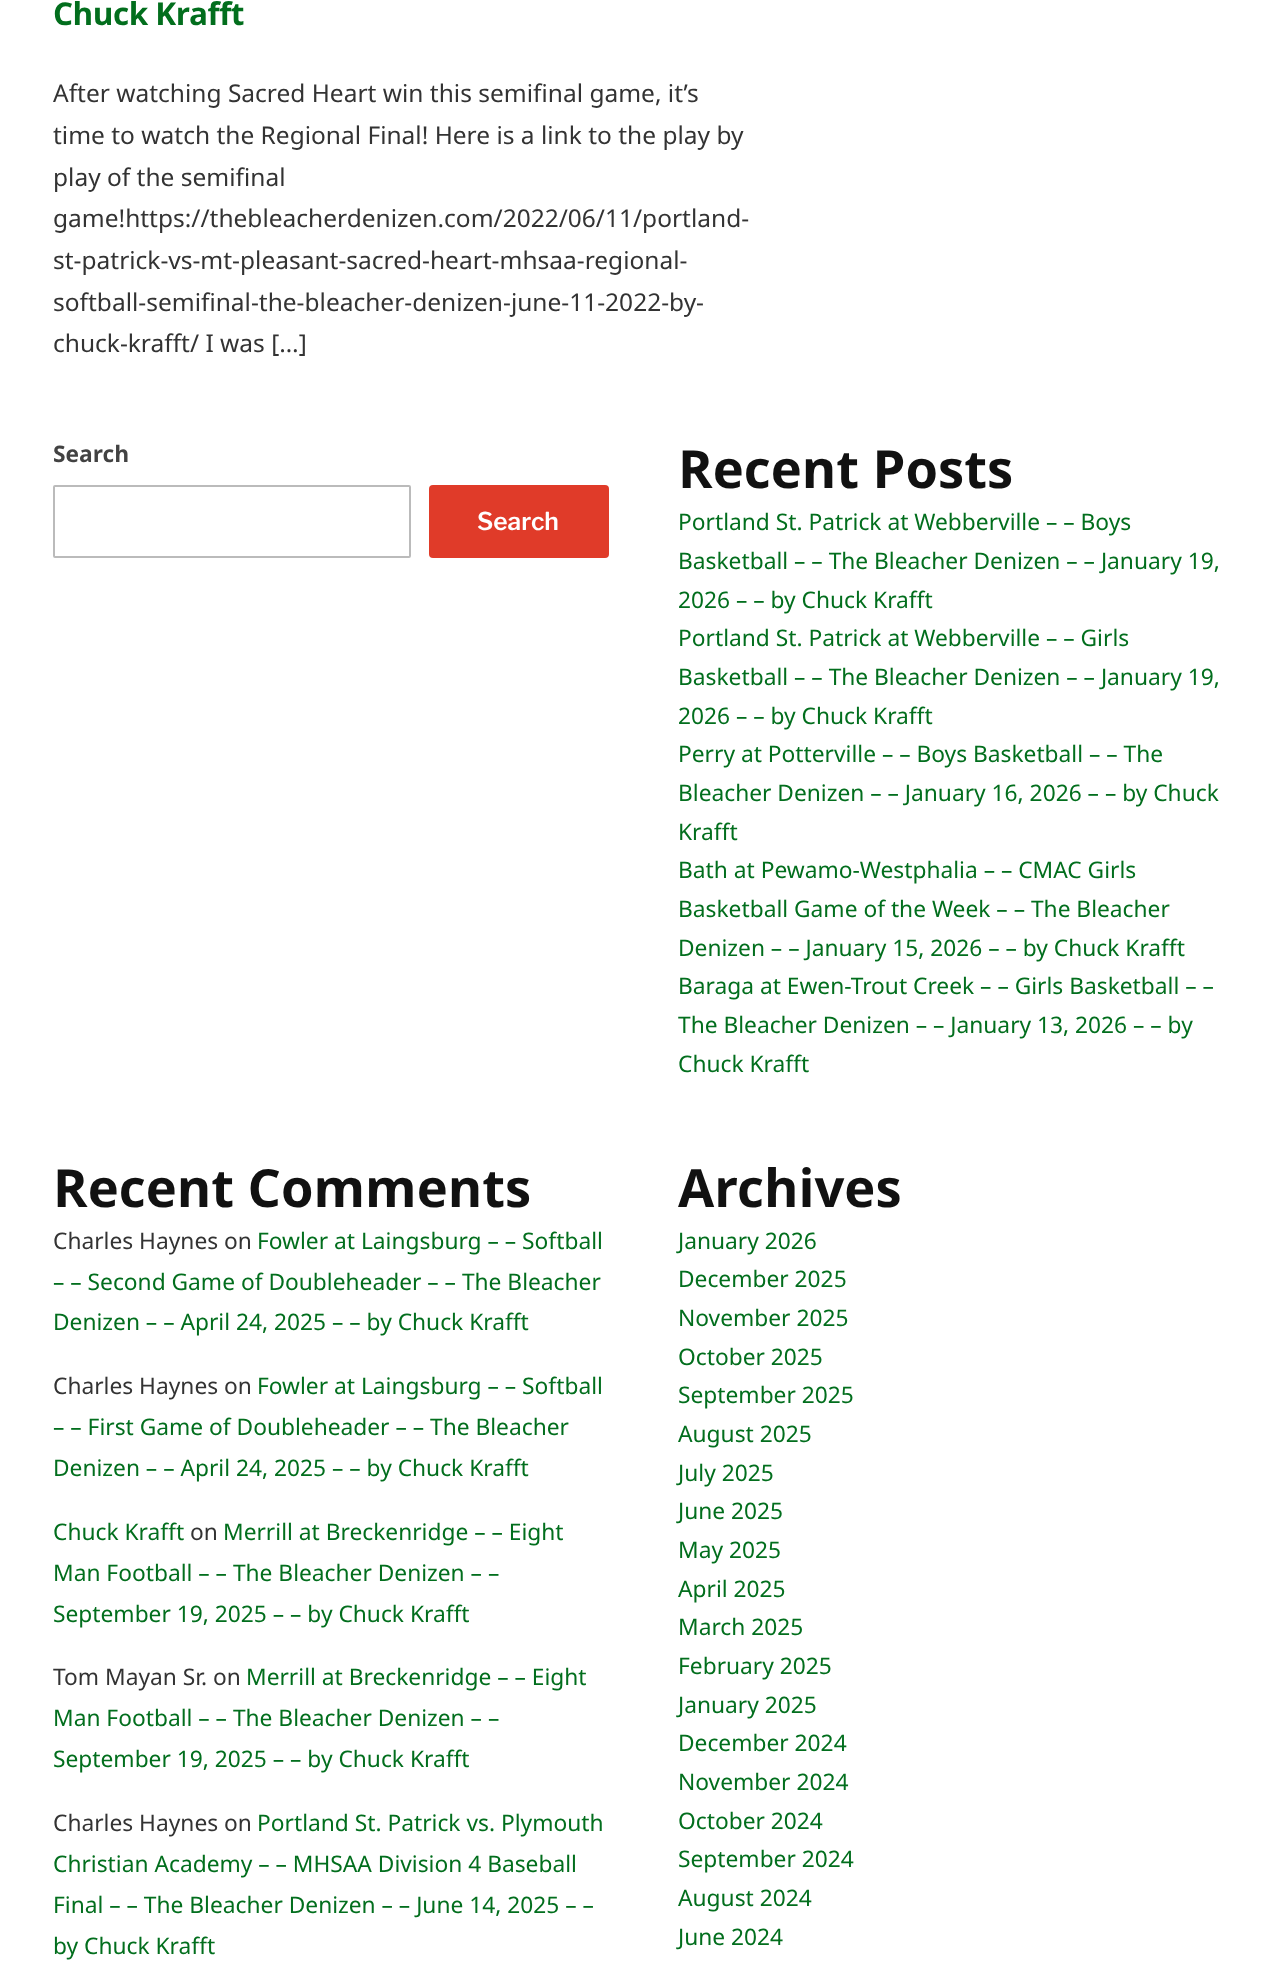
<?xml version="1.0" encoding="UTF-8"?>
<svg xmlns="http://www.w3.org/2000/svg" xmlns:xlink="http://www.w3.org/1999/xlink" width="1285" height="1975">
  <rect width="100%" height="100%" fill="#ffffff" />
  <rect x="54" y="486" width="356" height="71" rx="1" fill="none" stroke="#bbbbbb" stroke-width="2" />
  <rect x="429" y="485" width="180" height="73" rx="4" fill="#e03b29" />
  <text x="53" y="25" style="font-family: Noto Sans; font-size: 31.5px; font-weight: bold; letter-spacing: -0.5px; fill: #026e1d">Chuck Krafft</text>
  <text x="53" y="102" style="font-family: Noto Sans; font-size: 24.5px; fill: #333333">After watching Sacred Heart win this semifinal game, it’s</text>
  <text x="53" y="144" style="font-family: Noto Sans; font-size: 24.5px; fill: #333333">time to watch the Regional Final! Here is a link to the play by</text>
  <text x="53" y="186" style="font-family: Noto Sans; font-size: 24.5px; fill: #333333">play of the semifinal</text>
  <text x="53" y="227" style="font-family: Noto Sans; font-size: 24.5px; fill: #333333">game!https://thebleacherdenizen.com/2022/06/11/portland-</text>
  <text x="53" y="269" style="font-family: Noto Sans; font-size: 24.5px; fill: #333333">st-patrick-vs-mt-pleasant-sacred-heart-mhsaa-regional-</text>
  <text x="53" y="311" style="font-family: Noto Sans; font-size: 24.5px; fill: #333333">softball-semifinal-the-bleacher-denizen-june-11-2022-by-</text>
  <text x="53" y="352" style="font-family: Noto Sans; font-size: 24.5px; fill: #333333">chuck-krafft/ I was […]</text>
  <text x="53" y="462" style="font-family: Noto Sans; font-size: 22.75px; font-weight: bold; fill: #424242">Search</text>
  <text x="477" y="530" style="font-family: Libre Franklin; font-size: 24.5px; font-weight: 600; fill: #ffffff">Search</text>
  <text x="678" y="488" style="font-family: Noto Sans; font-size: 52.5px; font-weight: bold; fill: #111111">Recent Posts</text>
  <text x="678" y="530" style="font-family: Noto Sans; font-size: 22.75px; fill: #026e1d">Portland St. Patrick at Webberville – – Boys</text>
  <text x="678" y="569" style="font-family: Noto Sans; font-size: 22.75px; fill: #026e1d">Basketball – – The Bleacher Denizen – – January 19,</text>
  <text x="678" y="608" style="font-family: Noto Sans; font-size: 22.75px; fill: #026e1d">2026 – – by Chuck Krafft</text>
  <text x="678" y="646" style="font-family: Noto Sans; font-size: 22.75px; fill: #026e1d">Portland St. Patrick at Webberville – – Girls</text>
  <text x="678" y="685" style="font-family: Noto Sans; font-size: 22.75px; fill: #026e1d">Basketball – – The Bleacher Denizen – – January 19,</text>
  <text x="678" y="724" style="font-family: Noto Sans; font-size: 22.75px; fill: #026e1d">2026 – – by Chuck Krafft</text>
  <text x="678" y="762" style="font-family: Noto Sans; font-size: 22.75px; fill: #026e1d">Perry at Potterville – – Boys Basketball – – The</text>
  <text x="678" y="801" style="font-family: Noto Sans; font-size: 22.75px; fill: #026e1d">Bleacher Denizen – – January 16, 2026 – – by Chuck</text>
  <text x="678" y="840" style="font-family: Noto Sans; font-size: 22.75px; fill: #026e1d">Krafft</text>
  <text x="678" y="878" style="font-family: Noto Sans; font-size: 22.75px; fill: #026e1d">Bath at Pewamo-Westphalia – – CMAC Girls</text>
  <text x="678" y="917" style="font-family: Noto Sans; font-size: 22.75px; fill: #026e1d">Basketball Game of the Week – – The Bleacher</text>
  <text x="678" y="956" style="font-family: Noto Sans; font-size: 22.75px; fill: #026e1d">Denizen – – January 15, 2026 – – by Chuck Krafft</text>
  <text x="678" y="994" style="font-family: Noto Sans; font-size: 22.75px; fill: #026e1d">Baraga at Ewen-Trout Creek – – Girls Basketball – –</text>
  <text x="678" y="1033" style="font-family: Noto Sans; font-size: 22.75px; fill: #026e1d">The Bleacher Denizen – – January 13, 2026 – – by</text>
  <text x="678" y="1072" style="font-family: Noto Sans; font-size: 22.75px; fill: #026e1d">Chuck Krafft</text>
  <text x="53" y="1207" style="font-family: Noto Sans; font-size: 52.5px; font-weight: bold; fill: #111111">Recent Comments</text>
  <text x="53" y="1249" style="font-family: Noto Sans; font-size: 22.75px; fill: #333333">Charles Haynes on</text>
  <text x="257" y="1249" style="font-family: Noto Sans; font-size: 22.75px; fill: #026e1d">Fowler at Laingsburg – – Softball</text>
  <text x="53" y="1290" style="font-family: Noto Sans; font-size: 22.75px; fill: #026e1d">– – Second Game of Doubleheader – – The Bleacher</text>
  <text x="53" y="1330" style="font-family: Noto Sans; font-size: 22.75px; fill: #026e1d">Denizen – – April 24, 2025 – – by Chuck Krafft</text>
  <text x="53" y="1394" style="font-family: Noto Sans; font-size: 22.75px; fill: #333333">Charles Haynes on</text>
  <text x="257" y="1394" style="font-family: Noto Sans; font-size: 22.75px; fill: #026e1d">Fowler at Laingsburg – – Softball</text>
  <text x="53" y="1435" style="font-family: Noto Sans; font-size: 22.75px; fill: #026e1d">– – First Game of Doubleheader – – The Bleacher</text>
  <text x="53" y="1476" style="font-family: Noto Sans; font-size: 22.75px; fill: #026e1d">Denizen – – April 24, 2025 – – by Chuck Krafft</text>
  <text x="53" y="1540" style="font-family: Noto Sans; font-size: 22.75px; fill: #026e1d">Chuck Krafft</text>
  <text x="190" y="1540" style="font-family: Noto Sans; font-size: 22.75px; fill: #333333">on</text>
  <text x="223" y="1540" style="font-family: Noto Sans; font-size: 22.75px; fill: #026e1d">Merrill at Breckenridge – – Eight</text>
  <text x="53" y="1581" style="font-family: Noto Sans; font-size: 22.75px; fill: #026e1d">Man Football – – The Bleacher Denizen – –</text>
  <text x="53" y="1622" style="font-family: Noto Sans; font-size: 22.75px; fill: #026e1d">September 19, 2025 – – by Chuck Krafft</text>
  <text x="53" y="1685" style="font-family: Noto Sans; font-size: 22.75px; fill: #333333">Tom Mayan Sr. on</text>
  <text x="246" y="1685" style="font-family: Noto Sans; font-size: 22.75px; fill: #026e1d">Merrill at Breckenridge – – Eight</text>
  <text x="53" y="1726" style="font-family: Noto Sans; font-size: 22.75px; fill: #026e1d">Man Football – – The Bleacher Denizen – –</text>
  <text x="53" y="1767" style="font-family: Noto Sans; font-size: 22.75px; fill: #026e1d">September 19, 2025 – – by Chuck Krafft</text>
  <text x="53" y="1831" style="font-family: Noto Sans; font-size: 22.75px; fill: #333333">Charles Haynes on</text>
  <text x="257" y="1831" style="font-family: Noto Sans; font-size: 22.75px; fill: #026e1d">Portland St. Patrick vs. Plymouth</text>
  <text x="53" y="1872" style="font-family: Noto Sans; font-size: 22.75px; fill: #026e1d">Christian Academy – – MHSAA Division 4 Baseball</text>
  <text x="53" y="1913" style="font-family: Noto Sans; font-size: 22.75px; fill: #026e1d">Final – – The Bleacher Denizen – – June 14, 2025 – –</text>
  <text x="53" y="1954" style="font-family: Noto Sans; font-size: 22.75px; fill: #026e1d">by Chuck Krafft</text>
  <text x="678" y="1207" style="font-family: Noto Sans; font-size: 52.5px; font-weight: bold; fill: #111111">Archives</text>
  <text x="678" y="1249" style="font-family: Noto Sans; font-size: 22.75px; fill: #026e1d">January 2026</text>
  <text x="678" y="1287" style="font-family: Noto Sans; font-size: 22.75px; fill: #026e1d">December 2025</text>
  <text x="678" y="1326" style="font-family: Noto Sans; font-size: 22.75px; fill: #026e1d">November 2025</text>
  <text x="678" y="1365" style="font-family: Noto Sans; font-size: 22.75px; fill: #026e1d">October 2025</text>
  <text x="678" y="1403" style="font-family: Noto Sans; font-size: 22.75px; fill: #026e1d">September 2025</text>
  <text x="678" y="1442" style="font-family: Noto Sans; font-size: 22.75px; fill: #026e1d">August 2025</text>
  <text x="678" y="1481" style="font-family: Noto Sans; font-size: 22.75px; fill: #026e1d">July 2025</text>
  <text x="678" y="1519" style="font-family: Noto Sans; font-size: 22.75px; fill: #026e1d">June 2025</text>
  <text x="678" y="1558" style="font-family: Noto Sans; font-size: 22.75px; fill: #026e1d">May 2025</text>
  <text x="678" y="1597" style="font-family: Noto Sans; font-size: 22.75px; fill: #026e1d">April 2025</text>
  <text x="678" y="1635" style="font-family: Noto Sans; font-size: 22.75px; fill: #026e1d">March 2025</text>
  <text x="678" y="1674" style="font-family: Noto Sans; font-size: 22.75px; fill: #026e1d">February 2025</text>
  <text x="678" y="1713" style="font-family: Noto Sans; font-size: 22.75px; fill: #026e1d">January 2025</text>
  <text x="678" y="1751" style="font-family: Noto Sans; font-size: 22.75px; fill: #026e1d">December 2024</text>
  <text x="678" y="1790" style="font-family: Noto Sans; font-size: 22.75px; fill: #026e1d">November 2024</text>
  <text x="678" y="1829" style="font-family: Noto Sans; font-size: 22.75px; fill: #026e1d">October 2024</text>
  <text x="678" y="1867" style="font-family: Noto Sans; font-size: 22.75px; fill: #026e1d">September 2024</text>
  <text x="678" y="1906" style="font-family: Noto Sans; font-size: 22.75px; fill: #026e1d">August 2024</text>
  <text x="678" y="1945" style="font-family: Noto Sans; font-size: 22.75px; fill: #026e1d">June 2024</text>
</svg>
